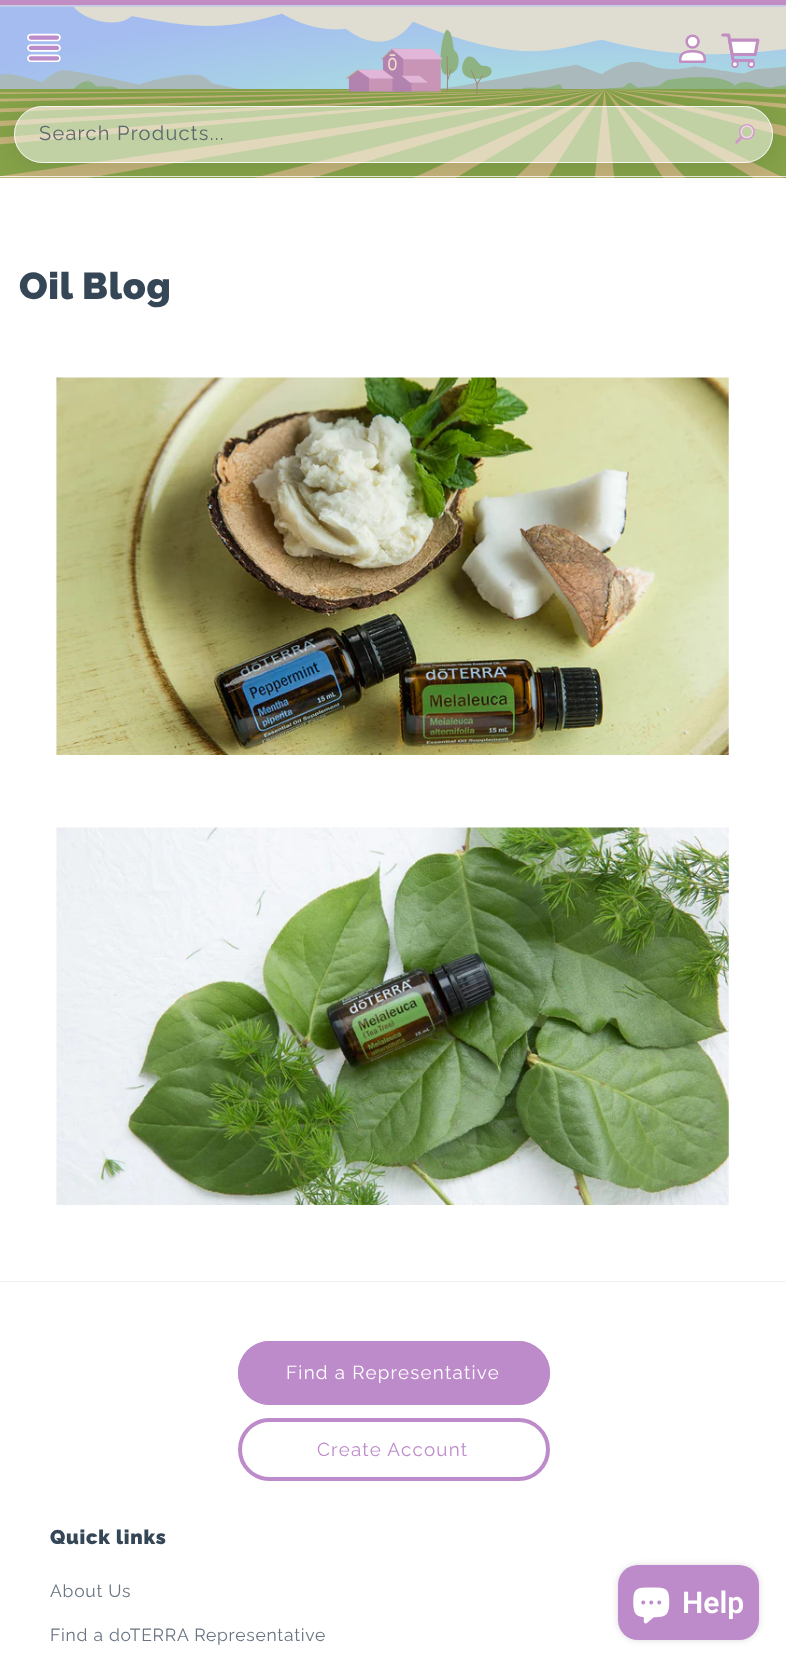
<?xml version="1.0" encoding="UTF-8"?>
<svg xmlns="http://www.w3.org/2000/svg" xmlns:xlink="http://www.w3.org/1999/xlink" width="786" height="1666">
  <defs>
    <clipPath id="clip1"><path d="M 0 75 h 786 v 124 h -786 z m 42.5 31 h 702 c 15.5 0 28.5 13 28.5 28.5 c 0 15.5 -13 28.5 -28.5 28.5 h -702 c -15.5 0 -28.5 -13 -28.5 -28.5 c 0 -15.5 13 -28.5 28.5 -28.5 z" clip-rule="evenodd" /></clipPath>
  </defs>
  <rect width="100%" height="100%" fill="#ffffff" />
  <image x="0" y="5" width="786" height="173" xlink:href="image1.png" />
  <rect width="786" height="5" fill="#c18dc2" />
  <rect y="176" width="786" height="1" fill="#ffffff" fill-opacity="0.8" />
  <image x="346" y="29" width="146" height="65" xlink:href="image2.png" />
  <image x="27" y="33" width="34" height="29" xlink:href="image3.png" />
  <image x="679" y="34" width="27" height="29" xlink:href="image4.png" />
  <image x="721" y="33" width="39" height="35" xlink:href="image5.png" />
  <rect x="14" y="106" width="759" height="57" rx="28.5" fill="#ffffff" fill-opacity="0.5" />
  <image x="735" y="124" width="20" height="20" xlink:href="image6.png" />
  <g clip-path="url(#clip1)">
    <rect x="14" y="109" width="759" height="56" rx="28" fill="#000000" fill-opacity="0.1" filter="blur(11px)" />
  </g>
  <rect x="14.5" y="106.5" width="758" height="56" rx="28" fill="none" stroke="#ffffff" stroke-opacity="0.8" />
  <image x="56" y="377" width="673" height="378" xlink:href="image7.png" />
  <image x="56" y="827" width="673" height="378" xlink:href="image8.png" />
  <rect y="1281" width="786" height="1" fill="#eff0f2" />
  <rect x="238" y="1341" width="312" height="64" rx="32" fill="#bd8bca" />
  <rect x="240" y="1343" width="308" height="60" rx="30" fill="none" stroke="#bd8bca" stroke-width="4" />
  <rect x="240" y="1420" width="308" height="59" rx="29.5" fill="none" stroke="#bd8bca" stroke-width="4" />
  <rect x="618" y="1565" width="141" height="75" rx="20" fill="#000000" fill-opacity="0.15" filter="blur(3px)" />
  <rect x="618" y="1565" width="141" height="75" rx="20" fill="#bd8bca" />
  <image x="633" y="1587" width="37" height="37" xlink:href="image9.png" />
  <text x="39" y="140" style="font-family: Raleway; font-size: 20px; letter-spacing: 1.25px; fill: #5b696c">Search Products...</text>
  <text x="19" y="299" style="font-family: Raleway; font-size: 37.5px; font-weight: 900; letter-spacing: 0.75px; fill: #354657">Oil Blog</text>
  <text x="286" y="1379" style="font-family: Raleway; font-size: 18.75px; letter-spacing: 1.25px; fill: #ffffff">Find a Representative</text>
  <text x="317" y="1456" style="font-family: Raleway; font-size: 18.75px; letter-spacing: 1.25px; fill: #bd8bca">Create Account</text>
  <text x="50" y="1544" style="font-family: Raleway; font-size: 20px; font-weight: 900; letter-spacing: 0.75px; fill: #354657">Quick links</text>
  <text x="50" y="1597" style="font-family: Raleway; font-size: 17.5px; letter-spacing: 0.75px; fill: #687481">About Us</text>
  <text x="50" y="1641" style="font-family: Raleway; font-size: 17.5px; letter-spacing: 0.75px; fill: #687481">Find a doTERRA Representative</text>
  <text x="682" y="1613" style="font-family: Roboto; font-size: 30px; font-weight: 600; fill: #ffffff">Help</text>
</svg>
